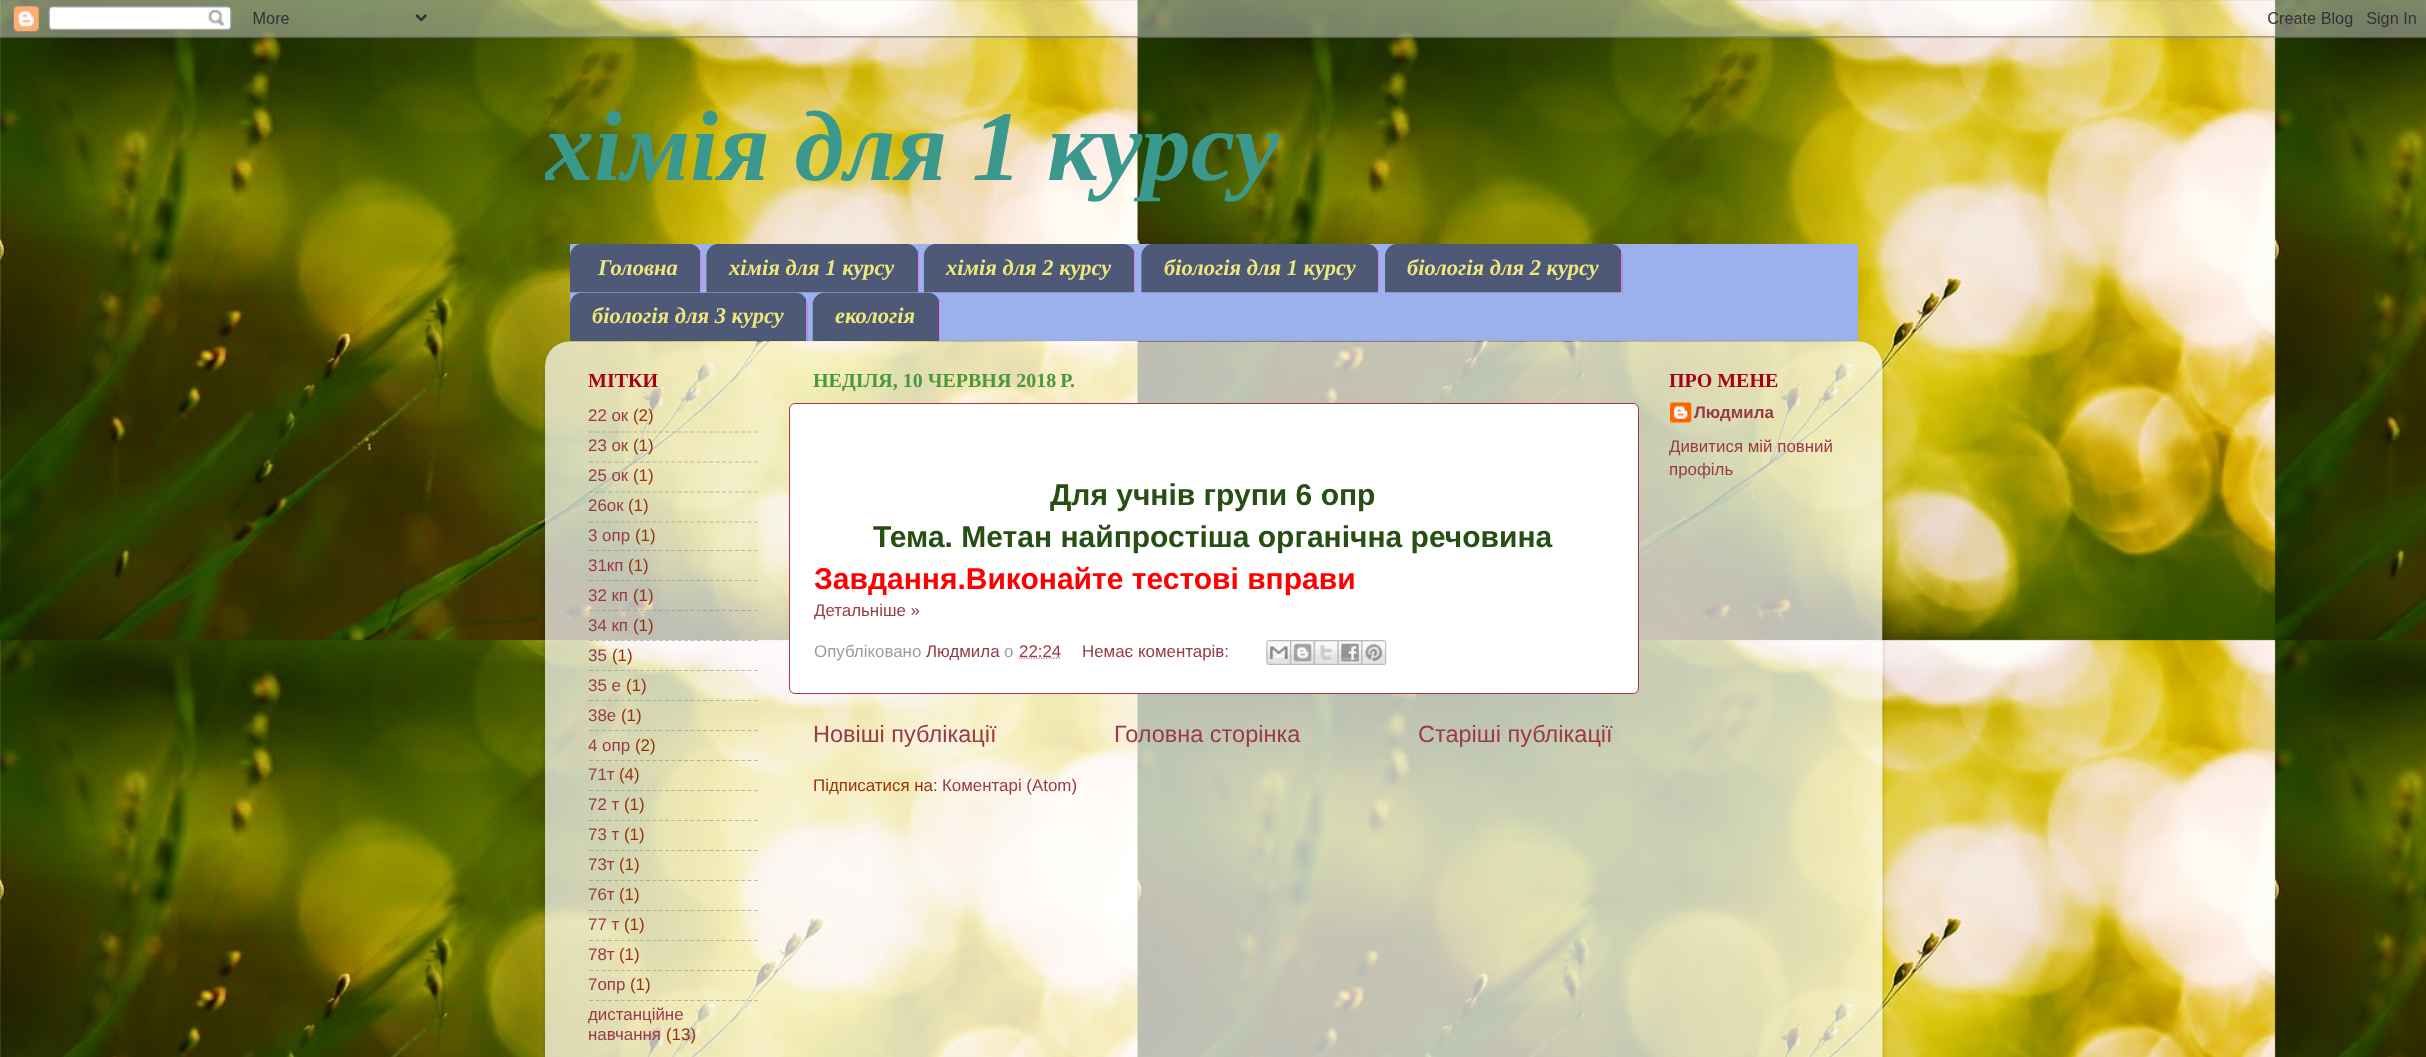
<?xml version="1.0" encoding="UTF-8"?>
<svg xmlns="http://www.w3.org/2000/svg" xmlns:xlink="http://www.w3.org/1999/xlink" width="2426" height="1057">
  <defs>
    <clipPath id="clip1"><path d="M 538 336 h 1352 v 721 h -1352 z m 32 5 h 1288 c 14 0 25 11 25 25 v 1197 h -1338 v -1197 c 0 -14 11 -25 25 -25 z" clip-rule="evenodd" /></clipPath>
    <clipPath id="clip2"><rect x="545" y="63" width="1338" height="172" /></clipPath>
  </defs>
  <rect width="100%" height="100%" fill="#ffffff" />
  <image x="0" y="0" width="2426" height="1057" xlink:href="image1.png" />
  <image x="0" y="0" width="2426" height="38" xlink:href="image2.png" />
  <rect x="570" y="244" width="1288" height="97" fill="#9db0ee" />
  <image x="570" y="244" width="132" height="49" xlink:href="image3.png" />
  <rect x="700" y="250" width="1" height="43" fill="#e77bee" />
  <image x="706" y="244" width="212" height="49" xlink:href="image4.png" />
  <rect x="918" y="250" width="1" height="43" fill="#e77bee" />
  <image x="923" y="244" width="211" height="49" xlink:href="image5.png" />
  <rect x="1134" y="250" width="1" height="43" fill="#e77bee" />
  <image x="1141" y="244" width="237" height="49" xlink:href="image6.png" />
  <rect x="1378" y="250" width="1" height="43" fill="#e77bee" />
  <image x="1385" y="244" width="238" height="49" xlink:href="image7.png" />
  <rect x="1621" y="250" width="1" height="43" fill="#e77bee" />
  <image x="570" y="292" width="238" height="49" xlink:href="image8.png" />
  <rect x="806" y="299" width="1" height="42" fill="#e77bee" />
  <image x="812" y="292" width="127" height="49" xlink:href="image9.png" />
  <rect x="939" y="299" width="1" height="42" fill="#e77bee" />
  <g clip-path="url(#clip1)">
    <rect x="545" y="343" width="1338" height="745" rx="25" fill="#000000" fill-opacity="0.15" filter="blur(2px)" />
  </g>
  <image x="545" y="341" width="1338" height="716" xlink:href="image10.png" />
  <path d="M 589 432 h 168.5" fill="none" stroke="#808080" stroke-opacity="0.5" stroke-width="1.2" stroke-dasharray="3.75 2.6" />
  <path d="M 589 462 h 168.5" fill="none" stroke="#808080" stroke-opacity="0.5" stroke-width="1.2" stroke-dasharray="3.75 2.6" />
  <path d="M 589 492 h 168.5" fill="none" stroke="#808080" stroke-opacity="0.5" stroke-width="1.2" stroke-dasharray="3.75 2.6" />
  <path d="M 589 522 h 168.5" fill="none" stroke="#808080" stroke-opacity="0.5" stroke-width="1.2" stroke-dasharray="3.75 2.6" />
  <path d="M 589 550.5 h 168.5" fill="none" stroke="#808080" stroke-opacity="0.5" stroke-width="1.2" stroke-dasharray="3.75 2.6" />
  <path d="M 589 580.5 h 168.5" fill="none" stroke="#808080" stroke-opacity="0.5" stroke-width="1.2" stroke-dasharray="3.75 2.6" />
  <path d="M 589 610.5 h 168.5" fill="none" stroke="#808080" stroke-opacity="0.5" stroke-width="1.2" stroke-dasharray="3.75 2.6" />
  <path d="M 589 640.5 h 168.5" fill="none" stroke="#808080" stroke-opacity="0.5" stroke-width="1.2" stroke-dasharray="3.75 2.6" />
  <path d="M 589 670.5 h 168.5" fill="none" stroke="#808080" stroke-opacity="0.5" stroke-width="1.2" stroke-dasharray="3.75 2.6" />
  <path d="M 589 700.5 h 168.5" fill="none" stroke="#808080" stroke-opacity="0.5" stroke-width="1.2" stroke-dasharray="3.75 2.6" />
  <path d="M 589 730.5 h 168.5" fill="none" stroke="#808080" stroke-opacity="0.5" stroke-width="1.2" stroke-dasharray="3.75 2.6" />
  <path d="M 589 760.5 h 168.5" fill="none" stroke="#808080" stroke-opacity="0.5" stroke-width="1.2" stroke-dasharray="3.75 2.6" />
  <path d="M 589 790.5 h 168.5" fill="none" stroke="#808080" stroke-opacity="0.5" stroke-width="1.2" stroke-dasharray="3.75 2.6" />
  <path d="M 589 820.5 h 168.5" fill="none" stroke="#808080" stroke-opacity="0.5" stroke-width="1.2" stroke-dasharray="3.75 2.6" />
  <path d="M 589 850.5 h 168.5" fill="none" stroke="#808080" stroke-opacity="0.5" stroke-width="1.2" stroke-dasharray="3.75 2.6" />
  <path d="M 589 880.5 h 168.5" fill="none" stroke="#808080" stroke-opacity="0.5" stroke-width="1.2" stroke-dasharray="3.75 2.6" />
  <path d="M 589 910.5 h 168.5" fill="none" stroke="#808080" stroke-opacity="0.5" stroke-width="1.2" stroke-dasharray="3.75 2.6" />
  <path d="M 589 940.5 h 168.5" fill="none" stroke="#808080" stroke-opacity="0.5" stroke-width="1.2" stroke-dasharray="3.75 2.6" />
  <path d="M 589 970.5 h 168.5" fill="none" stroke="#808080" stroke-opacity="0.5" stroke-width="1.2" stroke-dasharray="3.75 2.6" />
  <path d="M 589 1000.5 h 168.5" fill="none" stroke="#808080" stroke-opacity="0.5" stroke-width="1.2" stroke-dasharray="3.75 2.6" />
  <rect x="789.5" y="403.5" width="849" height="290" rx="5.5" fill="#ffffff" stroke="#a63746" />
  <path d="M 1018.5 658 h 42.5" fill="none" stroke="#993a48" stroke-width="1.2" stroke-dasharray="1.25 1.25" />
  <image x="1266" y="640" width="24" height="25" xlink:href="image11.png" />
  <image x="1290" y="640" width="24" height="25" xlink:href="image12.png" />
  <image x="1313" y="640" width="25" height="25" xlink:href="image13.png" />
  <image x="1337" y="640" width="25" height="25" xlink:href="image14.png" />
  <image x="1361" y="640" width="26" height="25" xlink:href="image15.png" />
  <image x="1670" y="402" width="22" height="21" xlink:href="image16.png" />
  <g clip-path="url(#clip2)">
    <text x="544" y="180" style="font-family: Liberation Serif; font-size: 100px; font-weight: bold; font-style: italic; fill: #3a998c">хімія для 1 курсу</text>
  </g>
  <text x="598" y="275" style="font-family: Liberation Serif; font-size: 22.5px; font-weight: bold; font-style: italic; fill: #eee77c">Головна</text>
  <text x="729" y="275" style="font-family: Liberation Serif; font-size: 22.5px; font-weight: bold; font-style: italic; fill: #eee77c">хімія для 1 курсу</text>
  <text x="946" y="275" style="font-family: Liberation Serif; font-size: 22.5px; font-weight: bold; font-style: italic; fill: #eee77c">хімія для 2 курсу</text>
  <text x="1164" y="275" style="font-family: Liberation Serif; font-size: 22.5px; font-weight: bold; font-style: italic; fill: #eee77c">біологія для 1 курсу</text>
  <text x="1407" y="275" style="font-family: Liberation Serif; font-size: 22.5px; font-weight: bold; font-style: italic; fill: #eee77c">біологія для 2 курсу</text>
  <text x="592" y="323" style="font-family: Liberation Serif; font-size: 22.5px; font-weight: bold; font-style: italic; fill: #eee77c">біологія для 3 курсу</text>
  <text x="835" y="323" style="font-family: Liberation Serif; font-size: 22.5px; font-weight: bold; font-style: italic; fill: #eee77c">екологія</text>
  <text x="588" y="387" style="font-family: Liberation Serif; font-size: 20px; font-weight: bold; fill: #a60016">МІТКИ</text>
  <text x="588" y="421" style="font-family: Liberation Sans; font-size: 16.9px; fill: #993a48">22 ок</text>
  <text x="633" y="421" style="font-family: Liberation Sans; font-size: 16.9px; fill: #99320c">(2)</text>
  <text x="588" y="451" style="font-family: Liberation Sans; font-size: 16.9px; fill: #993a48">23 ок</text>
  <text x="633" y="451" style="font-family: Liberation Sans; font-size: 16.9px; fill: #99320c">(1)</text>
  <text x="588" y="481" style="font-family: Liberation Sans; font-size: 16.9px; fill: #993a48">25 ок</text>
  <text x="633" y="481" style="font-family: Liberation Sans; font-size: 16.9px; fill: #99320c">(1)</text>
  <text x="588" y="511" style="font-family: Liberation Sans; font-size: 16.9px; fill: #993a48">26ок</text>
  <text x="628" y="511" style="font-family: Liberation Sans; font-size: 16.9px; fill: #99320c">(1)</text>
  <text x="588" y="541" style="font-family: Liberation Sans; font-size: 16.9px; fill: #993a48">3 опр</text>
  <text x="635" y="541" style="font-family: Liberation Sans; font-size: 16.9px; fill: #99320c">(1)</text>
  <text x="588" y="571" style="font-family: Liberation Sans; font-size: 16.9px; fill: #993a48">31кп</text>
  <text x="628" y="571" style="font-family: Liberation Sans; font-size: 16.9px; fill: #99320c">(1)</text>
  <text x="588" y="601" style="font-family: Liberation Sans; font-size: 16.9px; fill: #993a48">32 кп</text>
  <text x="633" y="601" style="font-family: Liberation Sans; font-size: 16.9px; fill: #99320c">(1)</text>
  <text x="588" y="631" style="font-family: Liberation Sans; font-size: 16.9px; fill: #993a48">34 кп</text>
  <text x="633" y="631" style="font-family: Liberation Sans; font-size: 16.9px; fill: #99320c">(1)</text>
  <text x="588" y="661" style="font-family: Liberation Sans; font-size: 16.9px; fill: #993a48">35</text>
  <text x="612" y="661" style="font-family: Liberation Sans; font-size: 16.9px; fill: #99320c">(1)</text>
  <text x="588" y="691" style="font-family: Liberation Sans; font-size: 16.9px; fill: #993a48">35 е</text>
  <text x="626" y="691" style="font-family: Liberation Sans; font-size: 16.9px; fill: #99320c">(1)</text>
  <text x="588" y="721" style="font-family: Liberation Sans; font-size: 16.9px; fill: #993a48">38е</text>
  <text x="621" y="721" style="font-family: Liberation Sans; font-size: 16.9px; fill: #99320c">(1)</text>
  <text x="588" y="751" style="font-family: Liberation Sans; font-size: 16.9px; fill: #993a48">4 опр</text>
  <text x="635" y="751" style="font-family: Liberation Sans; font-size: 16.9px; fill: #99320c">(2)</text>
  <text x="588" y="780" style="font-family: Liberation Sans; font-size: 16.9px; fill: #993a48">71т</text>
  <text x="619" y="780" style="font-family: Liberation Sans; font-size: 16.9px; fill: #99320c">(4)</text>
  <text x="588" y="810" style="font-family: Liberation Sans; font-size: 16.9px; fill: #993a48">72 т</text>
  <text x="624" y="810" style="font-family: Liberation Sans; font-size: 16.9px; fill: #99320c">(1)</text>
  <text x="588" y="840" style="font-family: Liberation Sans; font-size: 16.9px; fill: #993a48">73 т</text>
  <text x="624" y="840" style="font-family: Liberation Sans; font-size: 16.9px; fill: #99320c">(1)</text>
  <text x="588" y="870" style="font-family: Liberation Sans; font-size: 16.9px; fill: #993a48">73т</text>
  <text x="619" y="870" style="font-family: Liberation Sans; font-size: 16.9px; fill: #99320c">(1)</text>
  <text x="588" y="900" style="font-family: Liberation Sans; font-size: 16.9px; fill: #993a48">76т</text>
  <text x="619" y="900" style="font-family: Liberation Sans; font-size: 16.9px; fill: #99320c">(1)</text>
  <text x="588" y="930" style="font-family: Liberation Sans; font-size: 16.9px; fill: #993a48">77 т</text>
  <text x="624" y="930" style="font-family: Liberation Sans; font-size: 16.9px; fill: #99320c">(1)</text>
  <text x="588" y="960" style="font-family: Liberation Sans; font-size: 16.9px; fill: #993a48">78т</text>
  <text x="619" y="960" style="font-family: Liberation Sans; font-size: 16.9px; fill: #99320c">(1)</text>
  <text x="588" y="990" style="font-family: Liberation Sans; font-size: 16.9px; fill: #993a48">7опр</text>
  <text x="630" y="990" style="font-family: Liberation Sans; font-size: 16.9px; fill: #99320c">(1)</text>
  <text x="588" y="1020" style="font-family: Liberation Sans; font-size: 16.9px; fill: #993a48">дистанційне</text>
  <text x="588" y="1040" style="font-family: Liberation Sans; font-size: 16.9px; fill: #993a48">навчання</text>
  <text x="666" y="1040" style="font-family: Liberation Sans; font-size: 16.9px; fill: #99320c">(13)</text>
  <text x="813" y="387" style="font-family: Liberation Serif; font-size: 20px; font-weight: bold; fill: #48993b">НЕДІЛЯ, 10 ЧЕРВНЯ 2018 Р.</text>
  <text x="1050" y="505" style="font-family: Liberation Sans; font-size: 30px; font-weight: bold; fill: #274e13">Для учнів групи 6 опр</text>
  <text x="873" y="547" style="font-family: Liberation Sans; font-size: 30px; font-weight: bold; fill: #274e13">Тема. Метан найпростіша органічна речовина</text>
  <text x="814" y="589" style="font-family: Liberation Sans; font-size: 30px; font-weight: bold; fill: #ff0000">Завдання.Виконайте тестові вправи</text>
  <text x="814" y="616" style="font-family: Liberation Sans; font-size: 16.9px; fill: #993a48">Детальніше »</text>
  <text x="814" y="657" style="font-family: Liberation Sans; font-size: 16.9px; fill: #9d9d9d">Опубліковано</text>
  <text x="926" y="657" style="font-family: Liberation Sans; font-size: 16.9px; fill: #993a48">Людмила</text>
  <text x="1004" y="657" style="font-family: Liberation Sans; font-size: 16.9px; fill: #9d9d9d">о</text>
  <text x="1019" y="657" style="font-family: Liberation Sans; font-size: 16.9px; fill: #993a48">22:24</text>
  <text x="1082" y="657" style="font-family: Liberation Sans; font-size: 16.9px; fill: #993a48">Немає коментарів:</text>
  <text x="813" y="742" style="font-family: Liberation Sans; font-size: 23.5px; fill: #993a48">Новіші публікації</text>
  <text x="1114" y="742" style="font-family: Liberation Sans; font-size: 23.5px; fill: #993a48">Головна сторінка</text>
  <text x="1418" y="742" style="font-family: Liberation Sans; font-size: 23.5px; fill: #993a48">Старіші публікації</text>
  <text x="813" y="791" style="font-family: Liberation Sans; font-size: 16.9px; fill: #99320c">Підписатися на:</text>
  <text x="942" y="791" style="font-family: Liberation Sans; font-size: 16.9px; fill: #993a48">Коментарі (Atom)</text>
  <text x="1669" y="387" style="font-family: Liberation Serif; font-size: 20px; font-weight: bold; fill: #a60016">ПРО МЕНЕ</text>
  <text x="1694" y="418" style="font-family: Liberation Sans; font-size: 16.9px; font-weight: bold; fill: #993a48">Людмила</text>
  <text x="1669" y="452" style="font-family: Liberation Sans; font-size: 16.9px; fill: #993a48">Дивитися мій повний</text>
  <text x="1669" y="475" style="font-family: Liberation Sans; font-size: 16.9px; fill: #993a48">профіль</text>
</svg>
